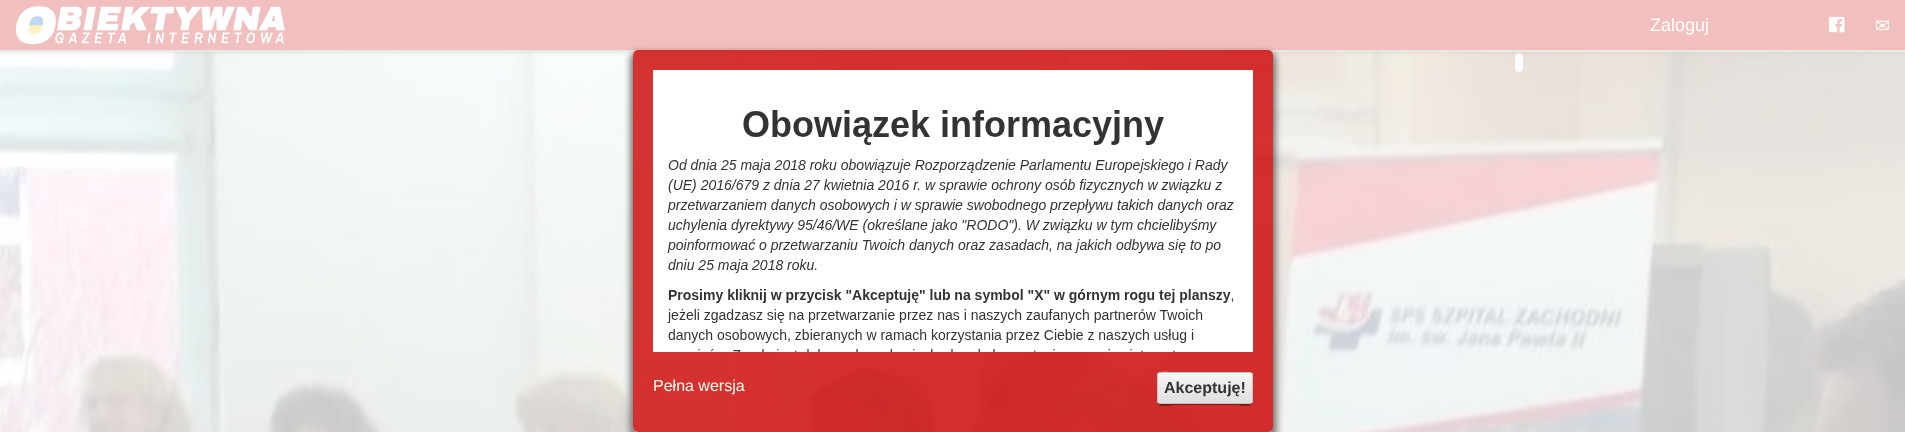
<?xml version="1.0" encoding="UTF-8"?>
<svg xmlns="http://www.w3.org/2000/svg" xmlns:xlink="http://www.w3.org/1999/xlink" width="1905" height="432">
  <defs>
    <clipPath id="clip1"><path d="M 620 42 h 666 v 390 h -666 z m 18 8 h 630 c 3 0 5 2 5 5 v 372 c 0 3 -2 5 -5 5 h -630 c -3 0 -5 -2 -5 -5 v -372 c 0 -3 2 -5 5 -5 z" clip-rule="evenodd" /></clipPath>
    <clipPath id="clip2"><rect x="1157" y="372" width="96" height="32" rx="3" /></clipPath>
    <linearGradient id="g1" gradientUnits="userSpaceOnUse" x1="1205" y1="373" x2="1205" y2="403"><stop offset="0" stop-color="#f5f5f5" /><stop offset="1" stop-color="#dfdfdf" /></linearGradient>
  </defs>
  <rect width="100%" height="100%" fill="#fffdf6" />
  <image x="0" y="52" width="1905" height="380" xlink:href="image3.png" />
  <rect x="1515" y="53" width="8" height="19" rx="4" fill="#fefcfc" />
  <rect x="-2" y="-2" width="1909" height="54" fill="#bfbfbf" fill-opacity="0.5" filter="blur(2.5px)" />
  <rect width="1905" height="50" fill="#f2bfbf" />
  <image x="15" y="0" width="270" height="49" xlink:href="image1.png" />
  <image x="1829" y="16" width="16" height="17" xlink:href="image2.png" />
  <g clip-path="url(#clip1)">
    <rect x="630" y="52" width="646" height="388" rx="8" fill="#000000" fill-opacity="0.5" filter="blur(3px)" />
  </g>
  <rect x="633" y="50" width="640" height="382" rx="5" fill="#cc0000" fill-opacity="0.8" />
  <image x="653" y="70" width="600" height="282" xlink:href="image4.png" />
  <path d="M 1157 401 c 0 8 15 4 18 4 h 60 c 3 0 18 4 18 -4 c 0 2 -1 3 -3 3 h -90 c -2 0 -3 -1 -3 -3 z" fill="#000000" fill-opacity="0.4" />
  <g clip-path="url(#clip2)">
    <rect x="1157" y="373" width="96" height="30" fill="url(#g1)" />
  </g>
  <path d="M 1160 374 h 90 c 1 0 2 1 2 2 c 0 -1 0 -3 -2 -3 h -75 c -2 0 -17 -4 -17 3 c 0 -1 1 -2 2 -2 z" fill="#ffffff" />
  <rect x="1157.5" y="372.5" width="95" height="31" rx="2.5" fill="none" stroke="#c2c2c2" />
  <text x="1650" y="31" style="font-family: Liberation Sans; font-size: 18px; fill: #fffffb">Zaloguj</text>
  <text x="1875" y="32" style="font-family: DejaVu Sans; font-size: 18px; fill: #fffffb">✉</text>
  <text x="653" y="391" style="font-family: Liberation Sans; font-size: 16px; fill: #fffff0">Pełna wersja</text>
  <text x="1164" y="393" style="font-family: Liberation Sans; font-size: 16px; font-weight: bold; fill: #333333">Akceptuję!</text>
</svg>
